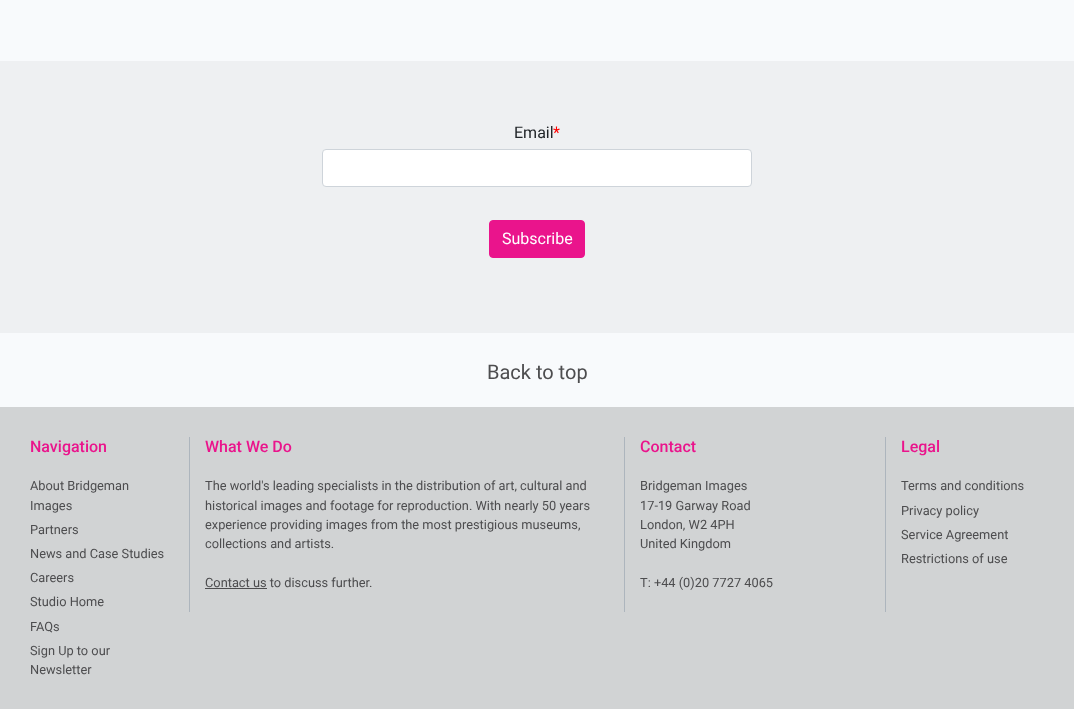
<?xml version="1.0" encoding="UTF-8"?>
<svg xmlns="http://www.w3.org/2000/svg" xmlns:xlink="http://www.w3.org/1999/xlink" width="1074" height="709">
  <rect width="100%" height="100%" fill="#f8fafc" />
  <rect y="61" width="1074" height="272" fill="#eef0f2" />
  <rect x="322.5" y="149.5" width="429" height="37" rx="3.5" fill="#ffffff" stroke="#ced4da" />
  <rect x="489.5" y="220.5" width="95" height="37" rx="3.5" fill="#ea148c" stroke="#ea148c" />
  <rect y="407" width="1074" height="302" fill="#d1d3d4" />
  <rect x="189" y="437" width="1" height="175" fill="#adb5bd" />
  <rect x="205" y="588" width="62" height="1" fill="#4d4d4f" />
  <rect x="624" y="437" width="1" height="175" fill="#adb5bd" />
  <rect x="885" y="437" width="1" height="175" fill="#adb5bd" />
  <text x="514" y="138" style="font-family: Roboto; font-size: 16px; fill: #212529">Email</text>
  <text x="553" y="138" style="font-family: Roboto; font-size: 16px; fill: #ff0000">*</text>
  <text x="502" y="244" style="font-family: Roboto; font-size: 16px; fill: #ffffff">Subscribe</text>
  <text x="487" y="379" style="font-family: Roboto; font-size: 20px; fill: #4d4d4f">Back to top</text>
  <text x="30" y="452" style="font-family: Roboto; font-size: 16px; font-weight: 500; fill: #ea148c">Navigation</text>
  <text x="30" y="490" style="font-family: Roboto; font-size: 12.8px; fill: #4d4d4f">About Bridgeman</text>
  <text x="30" y="510" style="font-family: Roboto; font-size: 12.8px; fill: #4d4d4f">Images</text>
  <text x="30" y="534" style="font-family: Roboto; font-size: 12.8px; fill: #4d4d4f">Partners</text>
  <text x="30" y="558" style="font-family: Roboto; font-size: 12.8px; fill: #4d4d4f">News and Case Studies</text>
  <text x="30" y="582" style="font-family: Roboto; font-size: 12.8px; fill: #4d4d4f">Careers</text>
  <text x="30" y="606" style="font-family: Roboto; font-size: 12.8px; fill: #4d4d4f">Studio Home</text>
  <text x="30" y="631" style="font-family: Roboto; font-size: 12.8px; fill: #4d4d4f">FAQs</text>
  <text x="30" y="655" style="font-family: Roboto; font-size: 12.8px; fill: #4d4d4f">Sign Up to our</text>
  <text x="30" y="674" style="font-family: Roboto; font-size: 12.8px; fill: #4d4d4f">Newsletter</text>
  <text x="205" y="452" style="font-family: Roboto; font-size: 16px; font-weight: 500; fill: #ea148c">What We Do</text>
  <text x="205" y="490" style="font-family: Roboto; font-size: 12.8px; fill: #4d4d4f">The world's leading specialists in the distribution of art, cultural and</text>
  <text x="205" y="510" style="font-family: Roboto; font-size: 12.8px; fill: #4d4d4f">historical images and footage for reproduction. With nearly 50 years</text>
  <text x="205" y="529" style="font-family: Roboto; font-size: 12.8px; fill: #4d4d4f">experience providing images from the most prestigious museums,</text>
  <text x="205" y="548" style="font-family: Roboto; font-size: 12.8px; fill: #4d4d4f">collections and artists.</text>
  <text x="205" y="587" style="font-family: Roboto; font-size: 12.8px; fill: #4d4d4f">Contact us to discuss further.</text>
  <text x="640" y="452" style="font-family: Roboto; font-size: 16px; font-weight: 500; fill: #ea148c">Contact</text>
  <text x="640" y="490" style="font-family: Roboto; font-size: 12.8px; fill: #4d4d4f">Bridgeman Images</text>
  <text x="640" y="510" style="font-family: Roboto; font-size: 12.8px; fill: #4d4d4f">17-19 Garway Road</text>
  <text x="640" y="529" style="font-family: Roboto; font-size: 12.8px; fill: #4d4d4f">London, W2 4PH</text>
  <text x="640" y="548" style="font-family: Roboto; font-size: 12.8px; fill: #4d4d4f">United Kingdom</text>
  <text x="640" y="587" style="font-family: Roboto; font-size: 12.8px; fill: #4d4d4f">T: +44 (0)20 7727 4065</text>
  <text x="901" y="452" style="font-family: Roboto; font-size: 16px; font-weight: 500; fill: #ea148c">Legal</text>
  <text x="901" y="490" style="font-family: Roboto; font-size: 12.8px; fill: #4d4d4f">Terms and conditions</text>
  <text x="901" y="515" style="font-family: Roboto; font-size: 12.8px; fill: #4d4d4f">Privacy policy</text>
  <text x="901" y="539" style="font-family: Roboto; font-size: 12.8px; fill: #4d4d4f">Service Agreement</text>
  <text x="901" y="563" style="font-family: Roboto; font-size: 12.8px; fill: #4d4d4f">Restrictions of use</text>
</svg>
